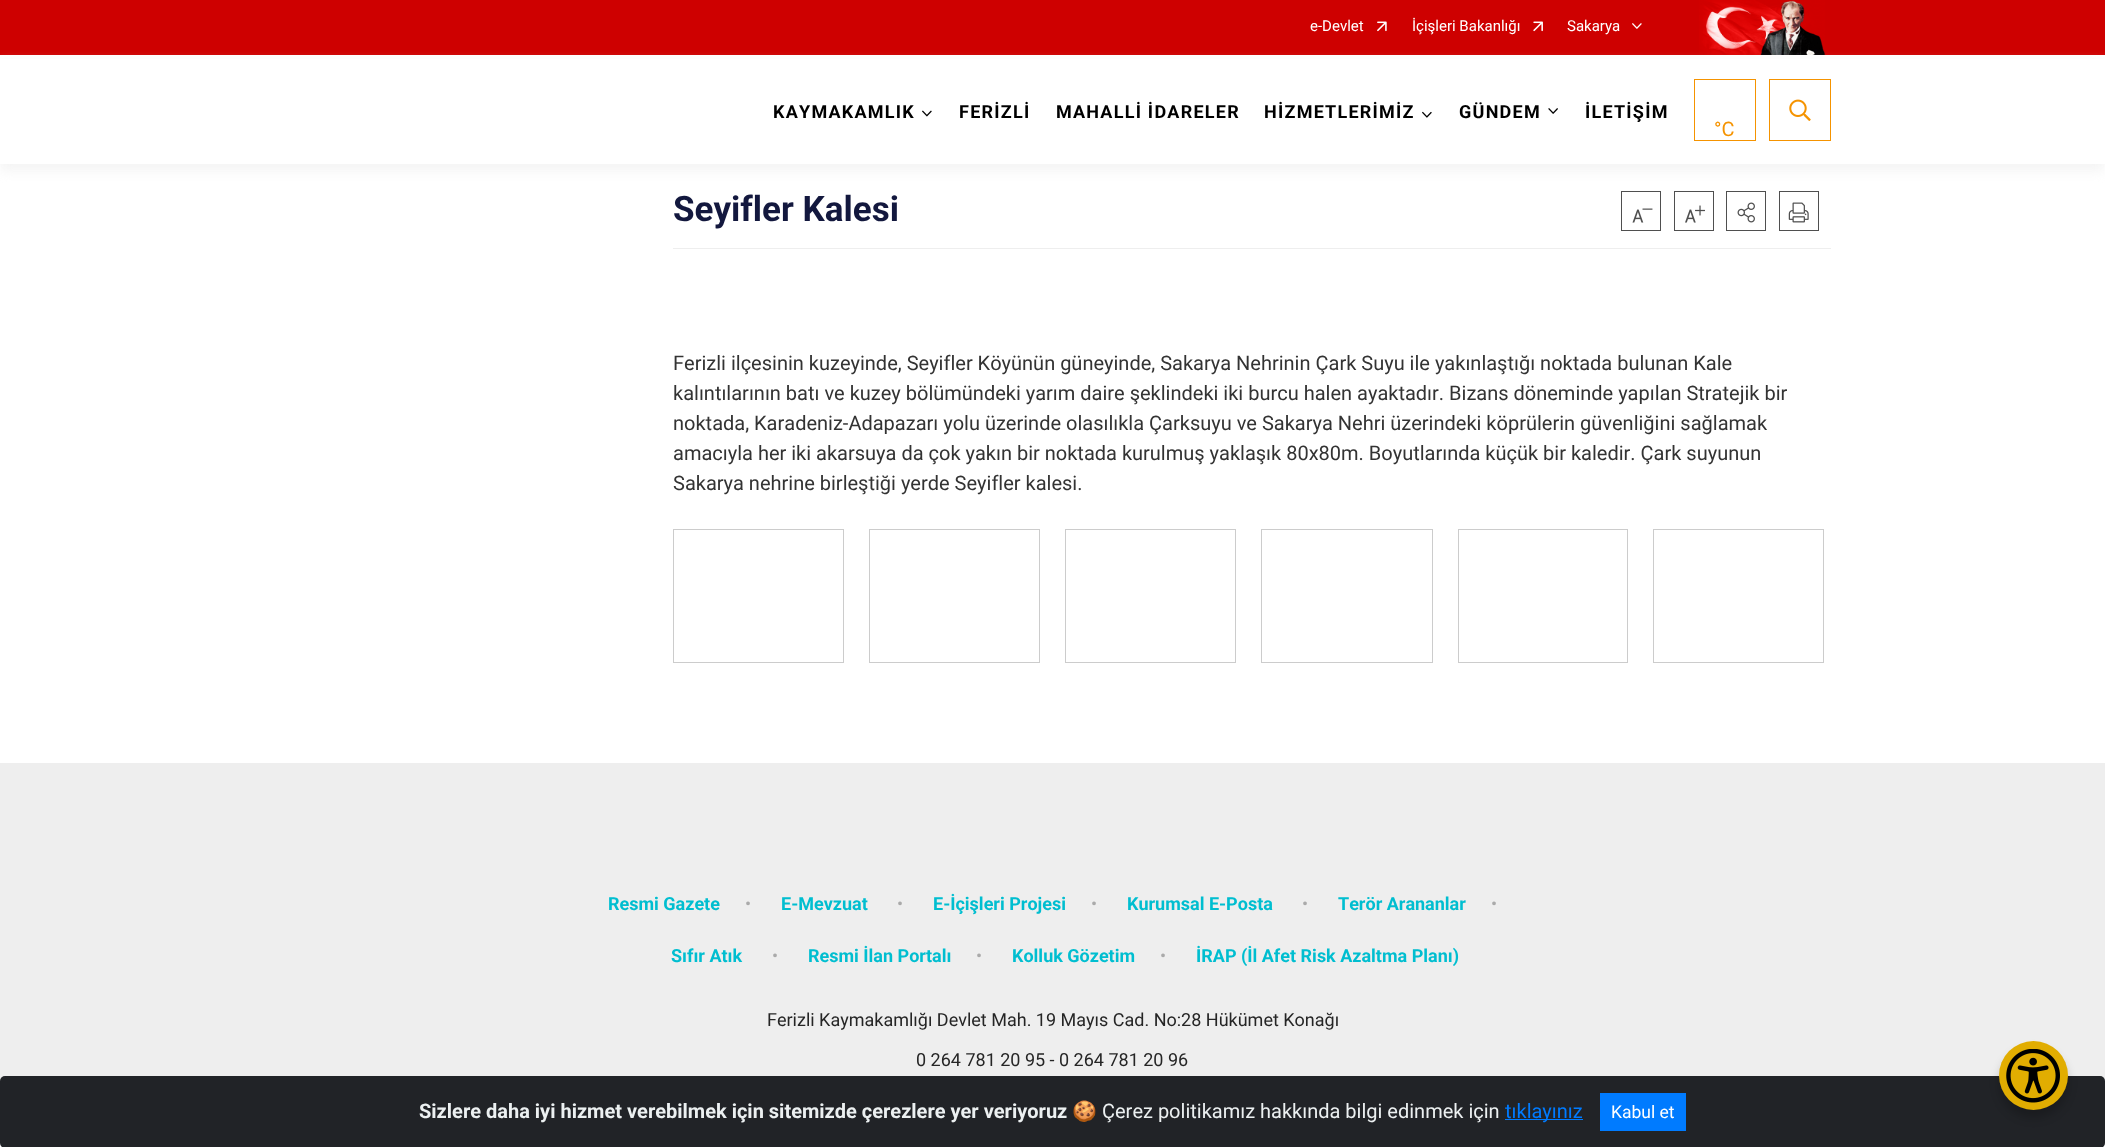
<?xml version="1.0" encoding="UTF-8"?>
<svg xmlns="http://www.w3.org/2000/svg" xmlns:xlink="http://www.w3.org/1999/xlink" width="2105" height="1147">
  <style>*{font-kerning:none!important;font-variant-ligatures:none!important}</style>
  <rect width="100%" height="100%" fill="#ffffff" />
  <rect width="2105" height="55" fill="#ce0000" />
  <image x="1377" y="21" width="10" height="11" xlink:href="image1.png" />
  <image x="1533" y="21" width="10" height="11" xlink:href="image2.png" />
  <image x="1632" y="23" width="10" height="6" xlink:href="image3.png" />
  <image x="1699" y="0" width="127" height="55" xlink:href="image4.png" />
  <rect y="63" width="2105" height="108" fill="#eeeeee" fill-opacity="0.62" filter="blur(6px)" />
  <rect y="59" width="2105" height="105" fill="#ffffff" />
  <image x="922" y="110" width="10" height="7" xlink:href="image5.png" />
  <image x="1422" y="111" width="10" height="7" xlink:href="image6.png" />
  <image x="1548" y="108" width="10" height="6" xlink:href="image7.png" />
  <rect x="1694.5" y="79.5" width="61" height="61" fill="none" stroke="#f59300" />
  <rect x="1769.5" y="79.5" width="61" height="61" fill="none" stroke="#f59300" />
  <image x="1789" y="99" width="22" height="22" xlink:href="image8.png" />
  <rect x="673" y="248" width="1158" height="1" fill="#eeeeee" />
  <rect x="1621.5" y="191.5" width="39" height="39" fill="none" stroke="#4f4f4f" />
  <image x="1632" y="208" width="21" height="15" xlink:href="image9.png" />
  <rect x="1674.5" y="191.5" width="39" height="39" fill="none" stroke="#4f4f4f" />
  <image x="1685" y="205" width="20" height="18" xlink:href="image10.png" />
  <rect x="1726.5" y="191.5" width="39" height="39" fill="none" stroke="#4f4f4f" />
  <image x="1737" y="202" width="18" height="21" xlink:href="image11.png" />
  <rect x="1779.5" y="191.5" width="39" height="39" fill="none" stroke="#4f4f4f" />
  <image x="1788" y="202" width="21" height="21" xlink:href="image12.png" />
  <rect x="673.5" y="529.5" width="170" height="133" fill="none" stroke="#cccccc" />
  <rect x="869.5" y="529.5" width="170" height="133" fill="none" stroke="#cccccc" />
  <rect x="1065.5" y="529.5" width="170" height="133" fill="none" stroke="#cccccc" />
  <rect x="1261.5" y="529.5" width="171" height="133" fill="none" stroke="#cccccc" />
  <rect x="1458.5" y="529.5" width="169" height="133" fill="none" stroke="#cccccc" />
  <rect x="1653.5" y="529.5" width="170" height="133" fill="none" stroke="#cccccc" />
  <rect y="763" width="2105" height="318" fill="#eeeeee" />
  <rect y="1076" width="2105" height="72" rx="5" fill="#212327" />
  <rect x="1505" y="1119" width="78" height="1" fill="#007bff" />
  <rect x="1600" y="1093" width="86" height="38" fill="#007bff" />
  <rect x="1999" y="1049" width="69" height="69" rx="34.5" fill="#000000" fill-opacity="0.2" filter="blur(5px)" />
  <circle cx="2033.5" cy="1075.5" r="34.5" fill="#e1ad01" />
  <image x="2006" y="1049" width="54" height="54" xlink:href="image13.png" />
  <text x="1310" y="31" style="font-family: Roboto; font-size: 15px; fill: #ffffff">e-Devlet</text>
  <text x="1412" y="31" style="font-family: Roboto; font-size: 15px; fill: #ffffff">İçişleri Bakanlığı</text>
  <text x="1567" y="31" style="font-family: Roboto; font-size: 15px; fill: #ffffff">Sakarya</text>
  <text x="773" y="118" style="font-family: Roboto; font-size: 18px; font-weight: bold; letter-spacing: 1.25px; fill: #000000">KAYMAKAMLIK</text>
  <text x="959" y="118" style="font-family: Roboto; font-size: 18px; font-weight: bold; letter-spacing: 1.25px; fill: #000000">FERİZLİ</text>
  <text x="1056" y="118" style="font-family: Roboto; font-size: 18px; font-weight: bold; letter-spacing: 1.25px; fill: #000000">MAHALLİ İDARELER</text>
  <text x="1264" y="118" style="font-family: Roboto; font-size: 18px; font-weight: bold; letter-spacing: 1.25px; fill: #000000">HİZMETLERİMİZ</text>
  <text x="1459" y="118" style="font-family: Roboto; font-size: 18px; font-weight: bold; letter-spacing: 1.25px; fill: #000000">GÜNDEM</text>
  <text x="1585" y="118" style="font-family: Roboto; font-size: 18px; font-weight: bold; letter-spacing: 1.25px; fill: #000000">İLETİŞİM</text>
  <text x="1714" y="136" style="font-family: Roboto; font-size: 20px; fill: #f59300">°C</text>
  <text x="673" y="221" style="font-family: Roboto; font-size: 35px; font-weight: bold; fill: #13183e">Seyifler Kalesi</text>
  <text x="673" y="370" style="font-family: Roboto; font-size: 20px; fill: #333333">Ferizli ilçesinin kuzeyinde, Seyifler Köyünün güneyinde, Sakarya Nehrinin Çark Suyu ile yakınlaştığı noktada bulunan Kale</text>
  <text x="673" y="400" style="font-family: Roboto; font-size: 20px; fill: #333333">kalıntılarının batı ve kuzey bölümündeki yarım daire şeklindeki iki burcu halen ayaktadır. Bizans döneminde yapılan Stratejik bir</text>
  <text x="673" y="430" style="font-family: Roboto; font-size: 20px; fill: #333333">noktada, Karadeniz-Adapazarı yolu üzerinde olasılıkla Çarksuyu ve Sakarya Nehri üzerindeki köprülerin güvenliğini sağlamak</text>
  <text x="673" y="460" style="font-family: Roboto; font-size: 20px; fill: #333333">amacıyla her iki akarsuya da çok yakın bir noktada kurulmuş yaklaşık 80x80m. Boyutlarında küçük bir kaledir. Çark suyunun</text>
  <text x="673" y="490" style="font-family: Roboto; font-size: 20px; fill: #333333">Sakarya nehrine birleştiği yerde Seyifler kalesi.</text>
  <text x="608" y="910" style="font-family: Roboto; font-size: 18px; font-weight: bold; fill: #00bed0">Resmi Gazete</text>
  <text x="745" y="910" style="font-family: Roboto; font-size: 18px; fill: #aaaaaa">•</text>
  <text x="781" y="910" style="font-family: Roboto; font-size: 18px; font-weight: bold; fill: #00bed0">E-Mevzuat</text>
  <text x="897" y="910" style="font-family: Roboto; font-size: 18px; fill: #aaaaaa">•</text>
  <text x="933" y="910" style="font-family: Roboto; font-size: 18px; font-weight: bold; fill: #00bed0">E-İçişleri Projesi</text>
  <text x="1091" y="910" style="font-family: Roboto; font-size: 18px; fill: #aaaaaa">•</text>
  <text x="1127" y="910" style="font-family: Roboto; font-size: 18px; font-weight: bold; fill: #00bed0">Kurumsal E-Posta</text>
  <text x="1302" y="910" style="font-family: Roboto; font-size: 18px; fill: #aaaaaa">•</text>
  <text x="1338" y="910" style="font-family: Roboto; font-size: 18px; font-weight: bold; fill: #00bed0">Terör Arananlar</text>
  <text x="1491" y="910" style="font-family: Roboto; font-size: 18px; fill: #aaaaaa">•</text>
  <text x="671" y="962" style="font-family: Roboto; font-size: 18px; font-weight: bold; fill: #00bed0">Sıfır Atık</text>
  <text x="772" y="962" style="font-family: Roboto; font-size: 18px; fill: #aaaaaa">•</text>
  <text x="808" y="962" style="font-family: Roboto; font-size: 18px; font-weight: bold; fill: #00bed0">Resmi İlan Portalı</text>
  <text x="976" y="962" style="font-family: Roboto; font-size: 18px; fill: #aaaaaa">•</text>
  <text x="1012" y="962" style="font-family: Roboto; font-size: 18px; font-weight: bold; fill: #00bed0">Kolluk Gözetim</text>
  <text x="1160" y="962" style="font-family: Roboto; font-size: 18px; fill: #aaaaaa">•</text>
  <text x="1196" y="962" style="font-family: Roboto; font-size: 18px; font-weight: bold; fill: #00bed0">İRAP (İl Afet Risk Azaltma Planı)</text>
  <text x="767" y="1026" style="font-family: Roboto; font-size: 18px; fill: #252525">Ferizli Kaymakamlığı Devlet Mah. 19 Mayıs Cad. No:28 Hükümet Konağı</text>
  <text x="916" y="1066" style="font-family: Roboto; font-size: 18px; fill: #252525">0 264 781 20 95 - 0 264 781 20 96</text>
  <text x="419" y="1118" style="font-family: Roboto; font-size: 20px; font-weight: bold; fill: #ecf0f1">Sizlere daha iyi hizmet verebilmek için sitemizde çerezlere yer veriyoruz</text>
  <text x="1072" y="1118" style="font-family: Noto Color Emoji; font-size: 20px; fill: #ecf0f1">🍪</text>
  <text x="1102" y="1118" style="font-family: Roboto; font-size: 20px; fill: #ecf0f1">Çerez politikamız hakkında bilgi edinmek için</text>
  <text x="1505" y="1118" style="font-family: Roboto; font-size: 20px; fill: #007bff">tıklayınız</text>
  <text x="1611" y="1118" style="font-family: Roboto; font-size: 17.5px; fill: #ffffff">Kabul et</text>
</svg>
